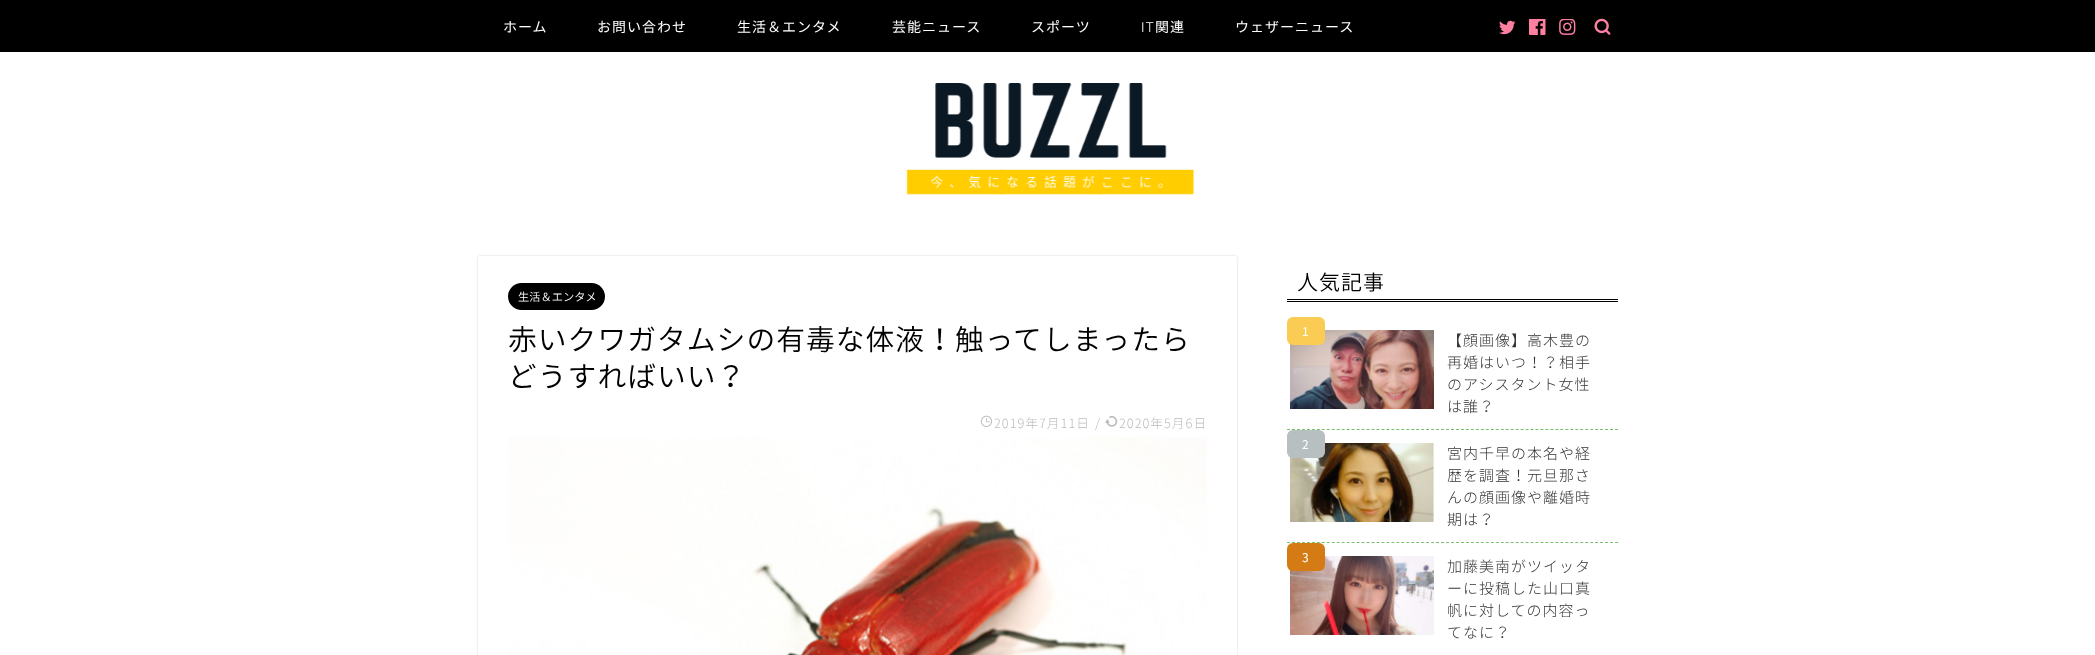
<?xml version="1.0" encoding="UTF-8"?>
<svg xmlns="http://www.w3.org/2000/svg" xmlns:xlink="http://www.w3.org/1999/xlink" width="2095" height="655">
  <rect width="100%" height="100%" fill="#ffffff" />
  <rect width="2095" height="52" fill="#000000" />
  <image x="1499" y="20" width="17" height="15" xlink:href="image1.png" />
  <image x="1529" y="19" width="17" height="16" xlink:href="image2.png" />
  <image x="1559" y="19" width="17" height="16" xlink:href="image3.png" />
  <image x="1594" y="18" width="17" height="17" xlink:href="image4.png" />
  <image x="906" y="83" width="288" height="112" xlink:href="image5.png" />
  <rect x="478" y="256" width="759" height="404" rx="2" fill="#000000" fill-opacity="0.18" filter="blur(1px)" />
  <rect x="478" y="256" width="759" height="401" rx="2" fill="#ffffff" />
  <rect x="508" y="283" width="97" height="27" rx="13.5" fill="#000000" />
  <image x="980" y="415" width="13" height="12" xlink:href="image6.png" />
  <image x="1105" y="415" width="13" height="12" xlink:href="image7.png" />
  <image x="508" y="437" width="699" height="218" xlink:href="image8.png" />
  <rect x="1287" y="299" width="331" height="1" fill="#000000" />
  <rect x="1287" y="301" width="331" height="1" fill="#000000" />
  <path d="M 1287 429.5 h 331" fill="none" stroke="#79c06e" stroke-dasharray="3 1.97" />
  <image x="1290" y="330" width="144" height="79" xlink:href="image9.png" />
  <rect x="1287" y="317" width="38" height="28" rx="6" fill="#fbcc54" />
  <path d="M 1287 542.5 h 331" fill="none" stroke="#79c06e" stroke-dasharray="3 1.97" />
  <image x="1290" y="443" width="144" height="79" xlink:href="image10.png" />
  <rect x="1287" y="430" width="38" height="28" rx="6" fill="#b7bfc1" />
  <image x="1290" y="556" width="144" height="79" xlink:href="image11.png" />
  <rect x="1287" y="543" width="38" height="28" rx="6" fill="#d47b16" />
  <text x="503" y="32" style="font-family: Noto Sans JP; font-size: 14px; letter-spacing: 1px; fill: #ffffff">ホーム</text>
  <text x="597" y="32" style="font-family: Noto Sans JP; font-size: 14px; letter-spacing: 1px; fill: #ffffff">お問い合わせ</text>
  <text x="737" y="32" style="font-family: Noto Sans JP; font-size: 14px; letter-spacing: 1px; fill: #ffffff">生活＆エンタメ</text>
  <text x="892" y="32" style="font-family: Noto Sans JP; font-size: 14px; letter-spacing: 1px; fill: #ffffff">芸能ニュース</text>
  <text x="1031" y="32" style="font-family: Noto Sans JP; font-size: 14px; letter-spacing: 1px; fill: #ffffff">スポーツ</text>
  <text x="1141" y="32" style="font-family: Quicksand; font-size: 14px; font-weight: 300; letter-spacing: 1px; fill: #ffffff">IT</text>
  <text x="1155" y="32" style="font-family: Noto Sans JP; font-size: 14px; letter-spacing: 1px; fill: #ffffff">関連</text>
  <text x="1235" y="32" style="font-family: Noto Sans JP; font-size: 14px; letter-spacing: 1px; fill: #ffffff">ウェザーニュース</text>
  <text x="518" y="301" style="font-family: Noto Sans JP; font-size: 11.25px; font-weight: 300; fill: #ffffff">生活＆エンタメ</text>
  <text x="508" y="350" style="font-family: Noto Sans JP; font-size: 28.8px; font-weight: 300; letter-spacing: 1px; fill: #000000">赤いクワガタムシの有毒な体液！触ってしまったら</text>
  <text x="508" y="387" style="font-family: Noto Sans JP; font-size: 28.8px; font-weight: 300; letter-spacing: 1px; fill: #000000">どうすればいい？</text>
  <text x="994" y="428" style="font-family: 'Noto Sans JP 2'; font-size: 12.75px; font-weight: 300; letter-spacing: 1px; fill: #bbbbbb">2019年7月11日</text>
  <text x="1095" y="428" style="font-family: 'Noto Sans JP 2'; font-size: 12.75px; font-weight: 300; letter-spacing: 1px; fill: #bbbbbb">/</text>
  <text x="1119" y="428" style="font-family: 'Noto Sans JP 2'; font-size: 12.75px; font-weight: 300; letter-spacing: 1px; fill: #bbbbbb">2020年5月6日</text>
  <text x="1297" y="290" style="font-family: Noto Sans JP; font-size: 21px; font-weight: 300; letter-spacing: 1px; fill: #000000">人気記事</text>
  <text x="1302" y="336" style="font-family: Noto Sans JP; font-size: 12px; letter-spacing: 1px; fill: #ffffff">1</text>
  <text x="1447" y="346" style="font-family: 'Noto Sans JP 2'; font-size: 15px; font-weight: 300; letter-spacing: 1px; fill: #333333">【顔画像】高木豊の</text>
  <text x="1447" y="368" style="font-family: 'Noto Sans JP 2'; font-size: 15px; font-weight: 300; letter-spacing: 1px; fill: #333333">再婚はいつ！？相手</text>
  <text x="1447" y="390" style="font-family: 'Noto Sans JP 2'; font-size: 15px; font-weight: 300; letter-spacing: 1px; fill: #333333">のアシスタント女性</text>
  <text x="1447" y="412" style="font-family: 'Noto Sans JP 2'; font-size: 15px; font-weight: 300; letter-spacing: 1px; fill: #333333">は誰？</text>
  <text x="1302" y="449" style="font-family: Noto Sans JP; font-size: 12px; letter-spacing: 1px; fill: #ffffff">2</text>
  <text x="1447" y="459" style="font-family: 'Noto Sans JP 2'; font-size: 15px; font-weight: 300; letter-spacing: 1px; fill: #333333">宮内千早の本名や経</text>
  <text x="1447" y="481" style="font-family: 'Noto Sans JP 2'; font-size: 15px; font-weight: 300; letter-spacing: 1px; fill: #333333">歴を調査！元旦那さ</text>
  <text x="1447" y="503" style="font-family: 'Noto Sans JP 2'; font-size: 15px; font-weight: 300; letter-spacing: 1px; fill: #333333">んの顔画像や離婚時</text>
  <text x="1447" y="525" style="font-family: 'Noto Sans JP 2'; font-size: 15px; font-weight: 300; letter-spacing: 1px; fill: #333333">期は？</text>
  <text x="1302" y="562" style="font-family: Noto Sans JP; font-size: 12px; letter-spacing: 1px; fill: #ffffff">3</text>
  <text x="1447" y="572" style="font-family: 'Noto Sans JP 2'; font-size: 15px; font-weight: 300; letter-spacing: 1px; fill: #333333">加藤美南がツイッタ</text>
  <text x="1447" y="594" style="font-family: 'Noto Sans JP 2'; font-size: 15px; font-weight: 300; letter-spacing: 1px; fill: #333333">ーに投稿した山口真</text>
  <text x="1447" y="616" style="font-family: 'Noto Sans JP 2'; font-size: 15px; font-weight: 300; letter-spacing: 1px; fill: #333333">帆に対しての内容っ</text>
  <text x="1447" y="638" style="font-family: 'Noto Sans JP 2'; font-size: 15px; font-weight: 300; letter-spacing: 1px; fill: #333333">てなに？</text>
</svg>
